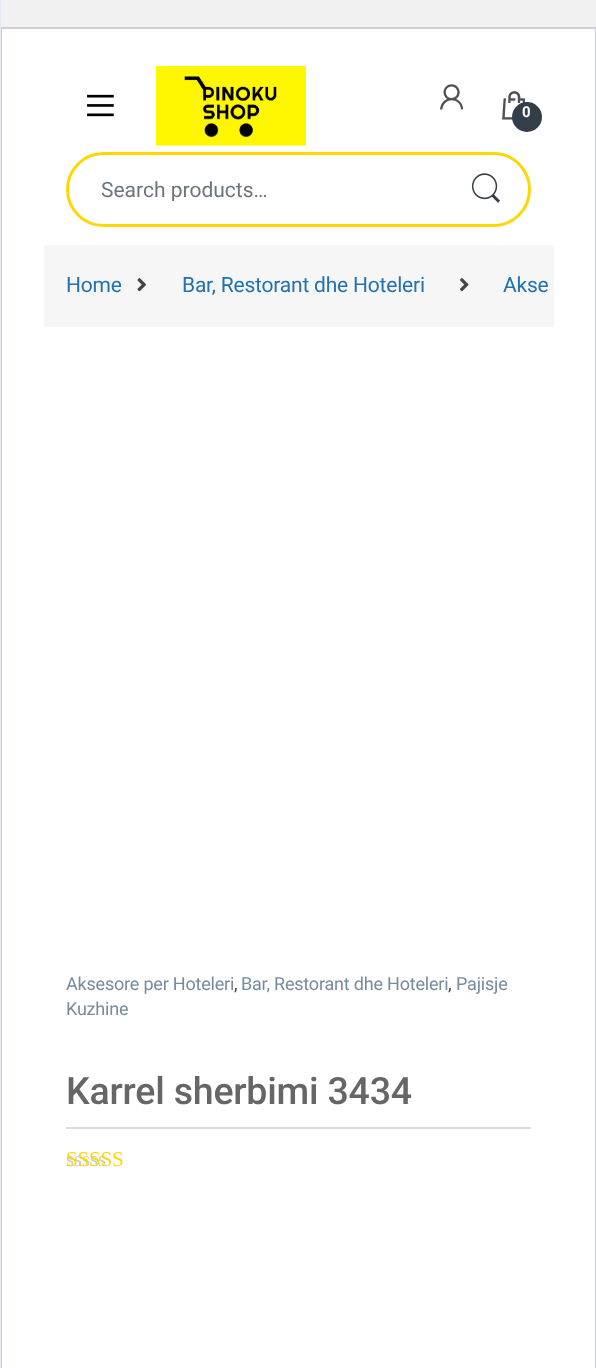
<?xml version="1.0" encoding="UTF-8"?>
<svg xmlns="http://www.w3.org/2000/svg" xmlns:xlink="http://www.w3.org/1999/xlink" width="596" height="1368">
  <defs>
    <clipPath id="clip1"><rect x="101" y="177" width="291" height="24" /></clipPath>
  </defs>
  <rect width="100%" height="100%" fill="#f1f1f1" />
  <rect x="1" y="28" width="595" height="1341" fill="#ffffff" stroke="#ccd0d4" stroke-width="2" />
  <rect width="1" height="1368" fill="#e3e9ef" />
  <image x="87" y="94" width="27" height="23" xlink:href="image1.png" />
  <image x="156" y="66" width="150" height="80" xlink:href="image2.png" />
  <image x="440" y="84" width="24" height="26" xlink:href="image3.png" />
  <image x="502" y="91" width="24" height="29" xlink:href="image4.png" />
  <circle cx="527" cy="117" r="15" fill="#333e48" />
  <rect x="67.5" y="153.5" width="462" height="72" rx="36" fill="none" stroke="#fed700" stroke-width="3" />
  <image x="471" y="173" width="29" height="30" xlink:href="image5.png" />
  <rect x="44" y="245" width="510" height="82" fill="#f7f6f6" />
  <image x="137" y="278" width="9" height="14" xlink:href="image6.png" />
  <image x="460" y="278" width="9" height="14" xlink:href="image7.png" />
  <rect x="66" y="1127" width="465" height="2" fill="#dadada" />
  <text x="522" y="117" style="font-family: Roboto; font-size: 15px; font-weight: bold; letter-spacing: -0.2px; fill: #ffffff">0</text>
  <g clip-path="url(#clip1)">
    <text x="101" y="197" style="font-family: Roboto; font-size: 21px; fill: #6c757d">Search products…</text>
  </g>
  <text x="66" y="292" style="font-family: Roboto; font-size: 21px; letter-spacing: -0.2px; fill: #2271b1">Home</text>
  <text x="182" y="292" style="font-family: Roboto; font-size: 21px; letter-spacing: -0.2px; fill: #2271b1">Bar, Restorant dhe Hoteleri</text>
  <text x="503" y="292" style="font-family: Roboto; font-size: 21px; letter-spacing: -0.2px; fill: #2271b1">Akse</text>
  <text x="66" y="990" style="font-family: Roboto; font-size: 18px; letter-spacing: -0.2px; fill: #768b9e">Aksesore per Hoteleri</text>
  <text x="234" y="990" style="font-family: Roboto; font-size: 18px; letter-spacing: -0.2px; fill: #444444">,</text>
  <text x="241" y="990" style="font-family: Roboto; font-size: 18px; letter-spacing: -0.2px; fill: #768b9e">Bar, Restorant dhe Hoteleri</text>
  <text x="448" y="990" style="font-family: Roboto; font-size: 18px; letter-spacing: -0.2px; fill: #444444">,</text>
  <text x="456" y="990" style="font-family: Roboto; font-size: 18px; letter-spacing: -0.2px; fill: #768b9e">Pajisje</text>
  <text x="66" y="1015" style="font-family: Roboto; font-size: 18px; letter-spacing: -0.2px; fill: #768b9e">Kuzhine</text>
  <text x="66" y="1104" style="font-family: Roboto; font-size: 37.5px; font-weight: 500; letter-spacing: -0.2px; fill: #666666">Karrel sherbimi 3434</text>
  <text x="66" y="1166" style="font-family: Liberation Serif; font-size: 21px; letter-spacing: -0.2px; fill: #cccccc">sssss</text>
  <text x="66" y="1166" style="font-family: Liberation Serif; font-size: 21px; letter-spacing: -0.2px; fill: #fed700">SSSSS</text>
</svg>
